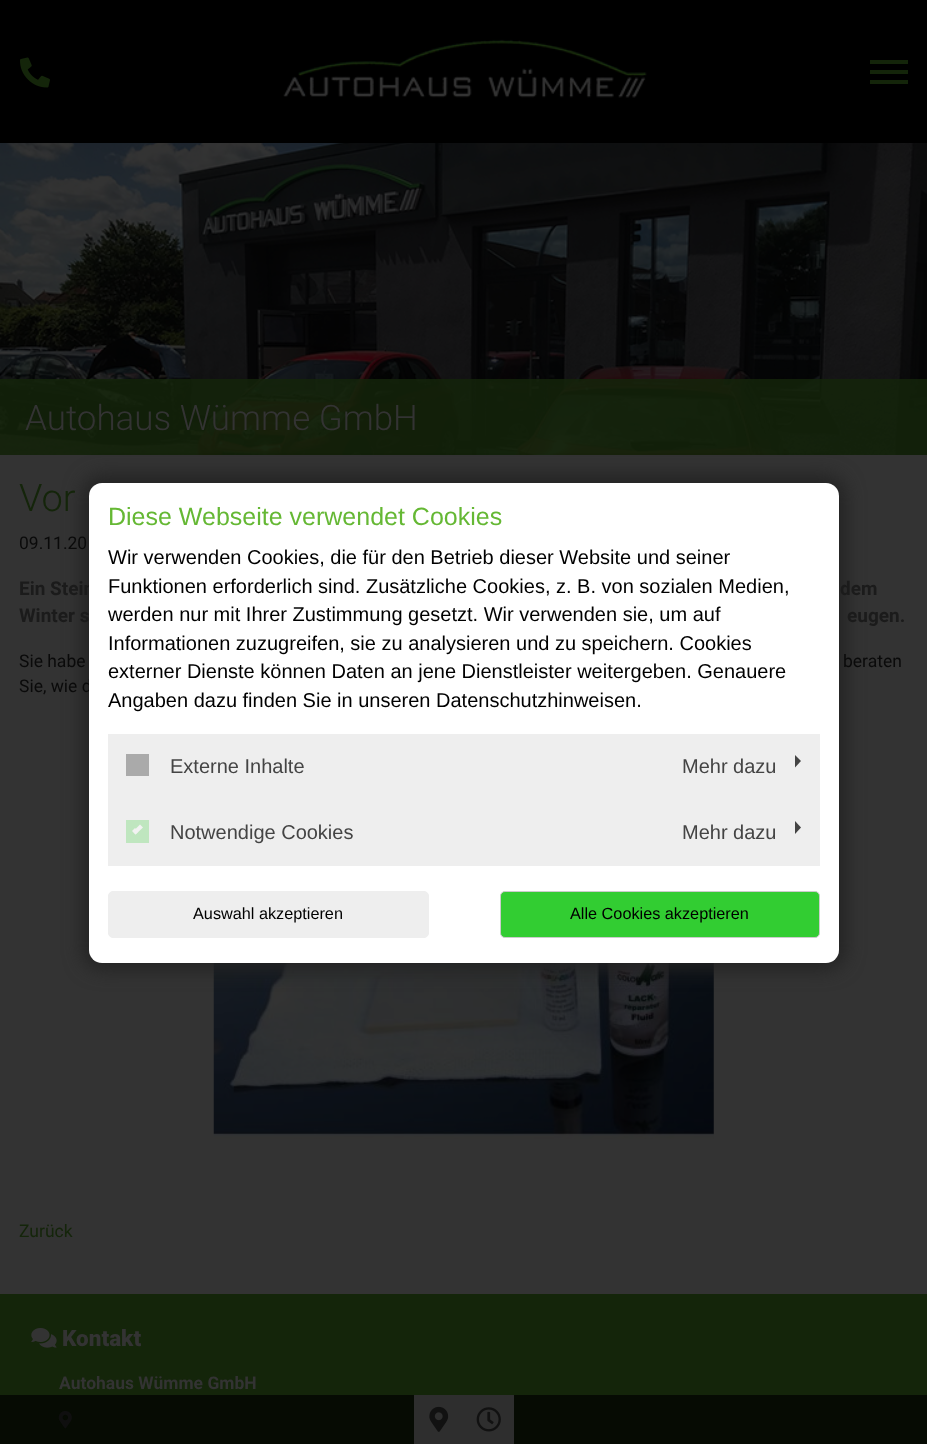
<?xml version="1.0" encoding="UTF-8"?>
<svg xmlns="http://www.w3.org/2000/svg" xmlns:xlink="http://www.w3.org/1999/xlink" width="927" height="1444">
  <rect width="100%" height="100%" fill="#333333" />
  <rect width="927" height="143" fill="#000000" />
  <image x="20" y="57" width="30" height="31" xlink:href="image1.png" />
  <image x="283" y="39" width="364" height="59" xlink:href="image2.png" />
  <rect x="870" y="60" width="38" height="4" fill="#14250a" />
  <rect x="870" y="70" width="38" height="4" fill="#14250a" />
  <rect x="870" y="80" width="38" height="4" fill="#14250a" />
  <image x="0" y="143" width="927" height="312" xlink:href="image3.png" />
  <rect y="379" width="927" height="76" fill="#14250a" fill-opacity="0.85" />
  <image x="213" y="963" width="501" height="176" xlink:href="image4.png" />
  <rect y="1294" width="927" height="101" fill="#14250a" />
  <rect y="1395" width="927" height="49" fill="#060b03" />
  <image x="31" y="1328" width="26" height="20" xlink:href="image5.png" />
  <image x="58" y="1410" width="14" height="19" xlink:href="image6.png" />
  <rect x="414" y="1395" width="100" height="49" fill="#2e2e2e" />
  <image x="429" y="1406" width="20" height="26" xlink:href="image7.png" />
  <image x="476" y="1407" width="25" height="25" xlink:href="image8.png" />
  <rect x="83" y="476" width="762" height="493" rx="19" fill="#222222" filter="blur(9.5px)" />
  <text x="25" y="430" style="font-family: Roboto; font-size: 35px; font-weight: 300; fill: #333333">Autohaus Wümme GmbH</text>
  <text x="19" y="511" style="font-family: Roboto; font-size: 38px; font-weight: 300; fill: #14250a">Vor</text>
  <text x="19" y="549" style="font-family: Roboto; font-size: 17.5px; fill: #0a0a0a">09.11.20</text>
  <text x="19" y="595" style="font-family: Roboto; font-size: 19px; font-weight: bold; fill: #1b1b1b">Ein Stein</text>
  <text x="840" y="595" style="font-family: Roboto; font-size: 19px; font-weight: bold; fill: #1b1b1b">dem</text>
  <text x="19" y="622" style="font-family: Roboto; font-size: 19px; font-weight: bold; fill: #1b1b1b">Winter s</text>
  <text x="847" y="622" style="font-family: Roboto; font-size: 19px; font-weight: bold; fill: #1b1b1b">eugen.</text>
  <text x="19" y="667" style="font-family: Roboto; font-size: 17.5px; fill: #0a0a0a">Sie habe</text>
  <text x="843" y="667" style="font-family: Roboto; font-size: 17.5px; fill: #0a0a0a">beraten</text>
  <text x="19" y="692" style="font-family: Roboto; font-size: 17.5px; fill: #0a0a0a">Sie, wie d</text>
  <text x="19" y="1237" style="font-family: Roboto; font-size: 17.5px; fill: #14250a">Zurück</text>
  <text x="62" y="1346" style="font-family: Roboto; font-size: 22.5px; font-weight: 900; fill: #333333">Kontakt</text>
  <text x="59" y="1389" style="font-family: Roboto; font-size: 17.5px; font-weight: bold; fill: #333333">Autohaus Wümme GmbH</text>
  <rect x="89" y="483" width="750" height="480" rx="13" fill="#ffffff" />
  <text x="108" y="525" style="font-family: Liberation Sans; font-size: 25px; fill: #65b834">Diese Webseite verwendet Cookies</text>
  <text x="108" y="564" style="font-family: Liberation Sans; font-size: 20px; fill: #000000">Wir verwenden Cookies, die für den Betrieb dieser Website und seiner</text>
  <text x="108" y="593" style="font-family: Liberation Sans; font-size: 20px; fill: #000000">Funktionen erforderlich sind. Zusätzliche Cookies, z. B. von sozialen Medien,</text>
  <text x="108" y="621" style="font-family: Liberation Sans; font-size: 20px; fill: #000000">werden nur mit Ihrer Zustimmung gesetzt. Wir verwenden sie, um auf</text>
  <text x="108" y="650" style="font-family: Liberation Sans; font-size: 20px; fill: #000000">Informationen zuzugreifen, sie zu analysieren und zu speichern. Cookies</text>
  <text x="108" y="678" style="font-family: Liberation Sans; font-size: 20px; fill: #000000">externer Dienste können Daten an jene Dienstleister weitergeben. Genauere</text>
  <text x="108" y="707" style="font-family: Liberation Sans; font-size: 20px; fill: #000000">Angaben dazu finden Sie in unseren Datenschutzhinweisen.</text>
  <rect x="108" y="734" width="712" height="132" fill="#eeeeee" />
  <rect x="126" y="754" width="23" height="22" fill="#aaaaaa" />
  <text x="170" y="773" style="font-family: Liberation Sans; font-size: 20px; fill: #444444">Externe Inhalte</text>
  <text x="682" y="773" style="font-family: Liberation Sans; font-size: 20px; fill: #444444">Mehr dazu</text>
  <path d="M 795 767.5 v -12.5 l 6 6 z" fill="#444444" />
  <rect x="126" y="820" width="23" height="23" fill="#bfe6bf" />
  <path d="M 140 824.5 l 3 3 l -7.5 7 l -2.5 -3 z" fill="#f2f2f2" />
  <path d="M 135 828 l 3.5 3.5 l -3 3 l -3.5 -3.5 z" fill="#f2f2f2" />
  <text x="170" y="839" style="font-family: Liberation Sans; font-size: 20px; fill: #444444">Notwendige Cookies</text>
  <text x="682" y="839" style="font-family: Liberation Sans; font-size: 20px; fill: #444444">Mehr dazu</text>
  <path d="M 795 834 v -13 l 6 6.5 z" fill="#444444" />
  <rect x="108.5" y="891.5" width="320" height="46" rx="4.5" fill="#eeeeee" stroke="#eeeeee" />
  <text x="193" y="919" style="font-family: Liberation Sans; font-size: 16.25px; fill: #000000">Auswahl akzeptieren</text>
  <rect x="500.5" y="891.5" width="319" height="46" rx="4.5" fill="#32cd32" stroke="#cccccc" />
  <text x="570" y="919" style="font-family: Liberation Sans; font-size: 16.25px; fill: #000000">Alle Cookies akzeptieren</text>
</svg>
